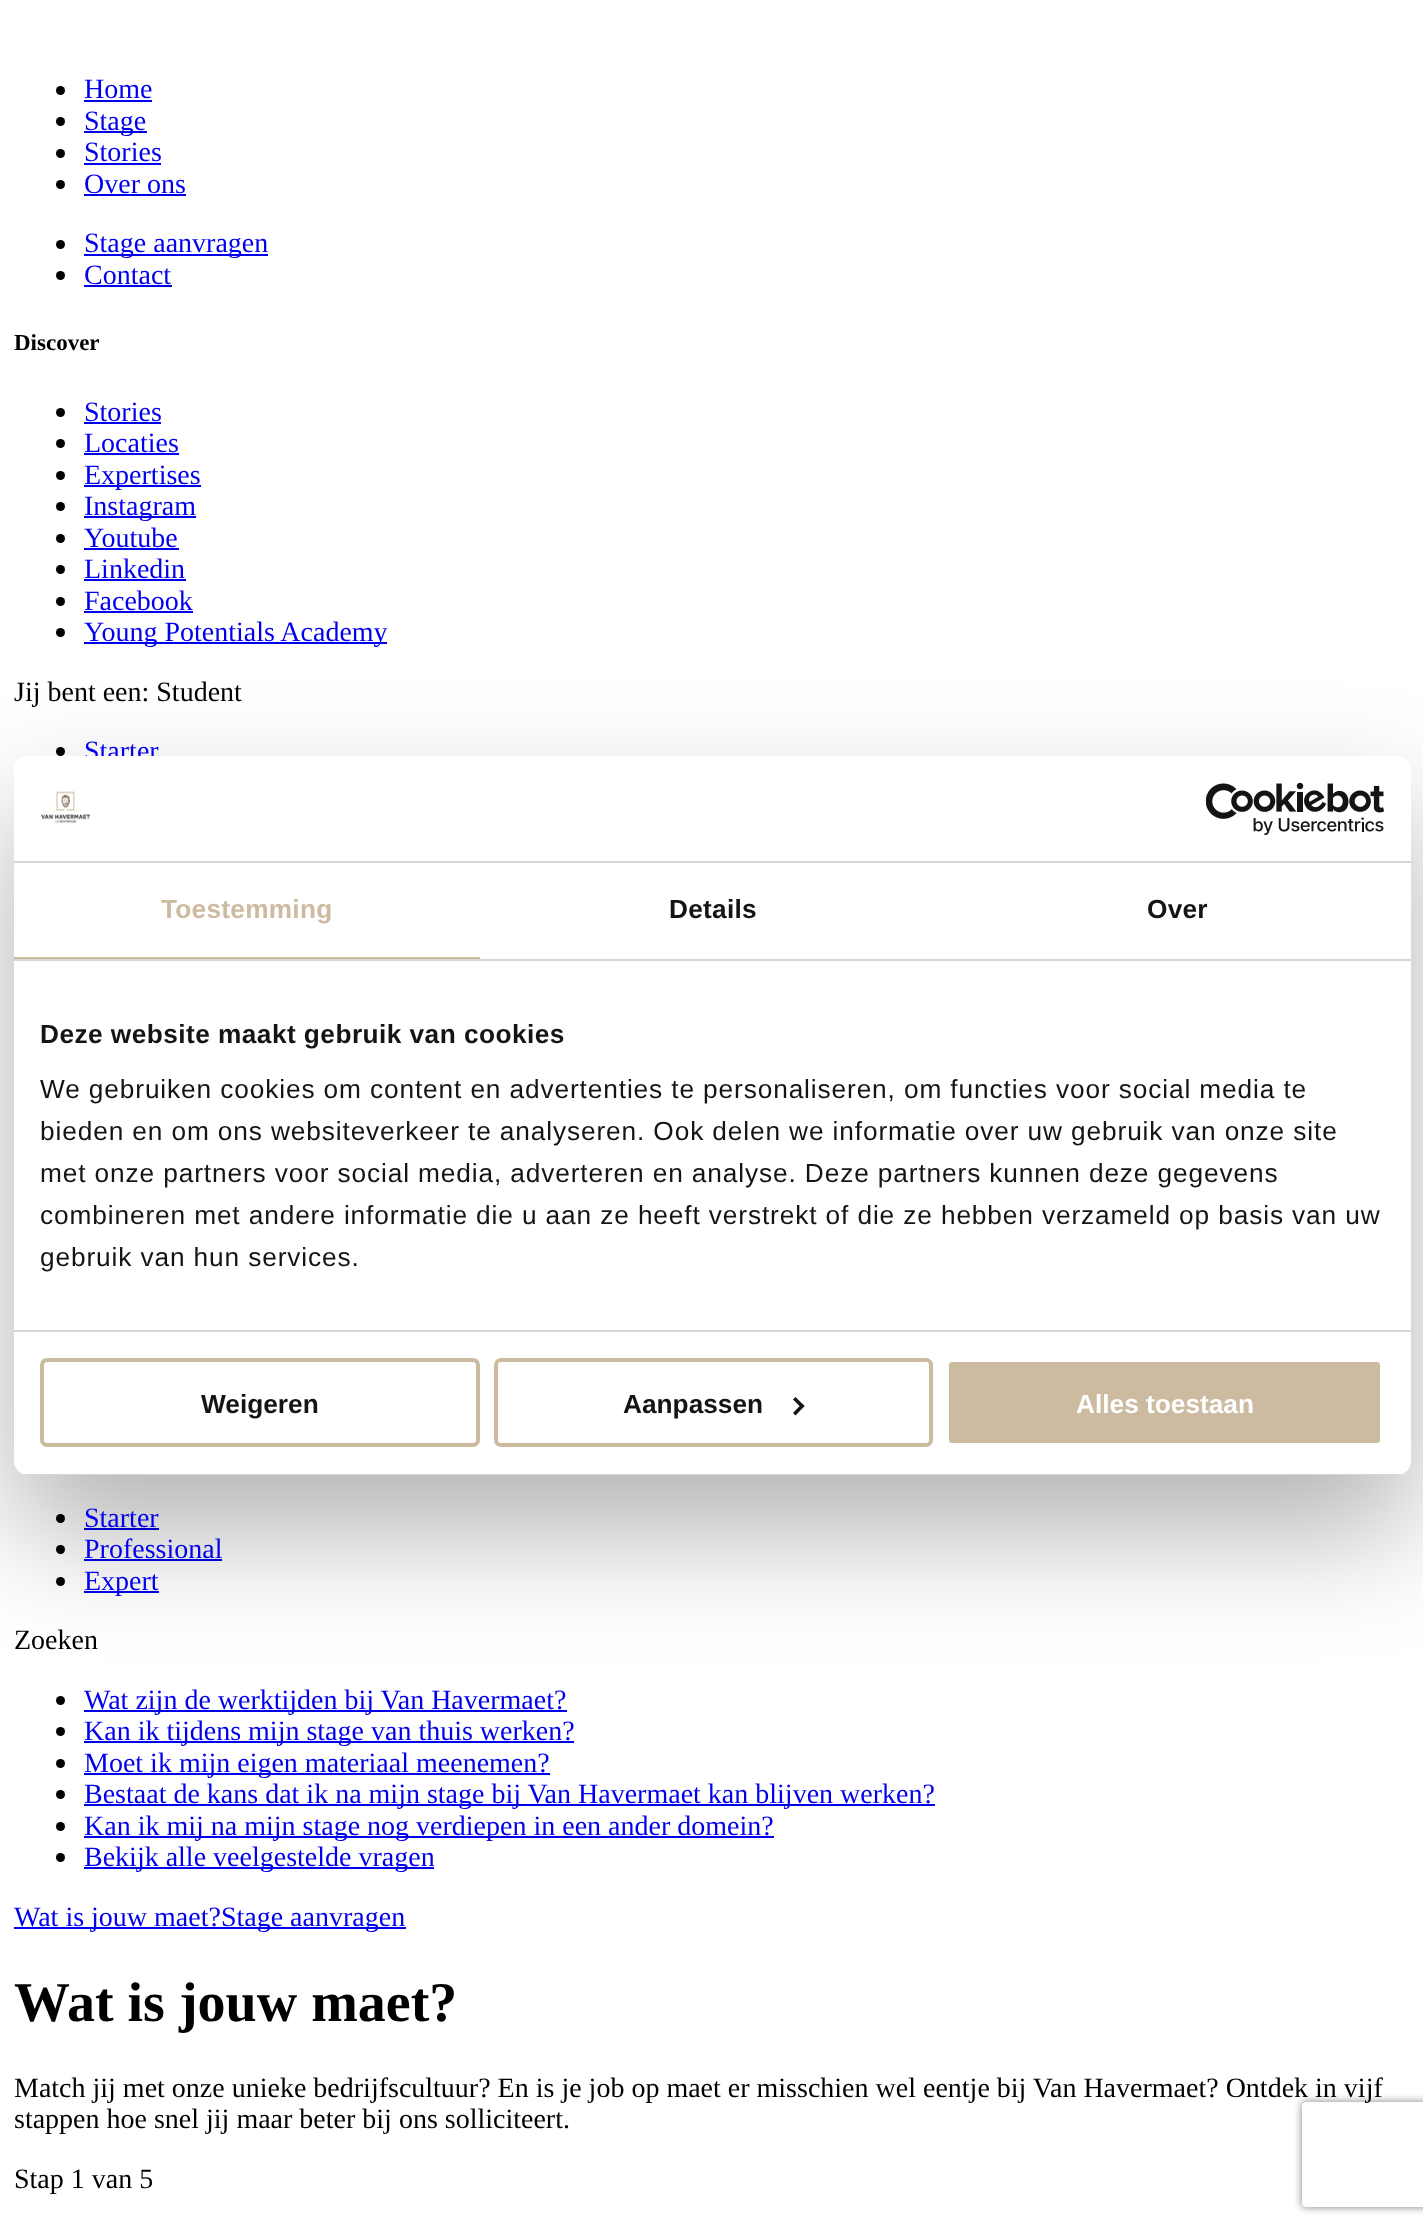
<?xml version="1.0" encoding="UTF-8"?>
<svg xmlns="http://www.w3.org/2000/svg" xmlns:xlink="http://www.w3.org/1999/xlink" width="1423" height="2231">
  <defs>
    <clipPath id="clip1"><path d="M 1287 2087 h 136 v 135 h -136 z m 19 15 h 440 c 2 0 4 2 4 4 v 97 c 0 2 -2 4 -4 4 h -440 c -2 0 -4 -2 -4 -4 v -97 c 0 -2 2 -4 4 -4 z" clip-rule="evenodd" /></clipPath>
    <clipPath id="clip2"><rect x="14" y="756" width="1397" height="719" rx="14" /></clipPath>
  </defs>
  <rect width="100%" height="100%" fill="#ffffff" />
  <circle cx="60.5" cy="90.5" r="4.5" fill="#000000" />
  <rect x="84" y="100" width="68" height="2" fill="#0000ee" />
  <circle cx="60.5" cy="121.5" r="4.5" fill="#000000" />
  <rect x="84" y="131" width="63" height="2" fill="#0000ee" />
  <circle cx="60.5" cy="153.5" r="4.5" fill="#000000" />
  <rect x="84" y="163" width="77" height="2" fill="#0000ee" />
  <circle cx="60.5" cy="184.5" r="4.5" fill="#000000" />
  <rect x="84" y="194" width="102" height="2" fill="#0000ee" />
  <circle cx="60.5" cy="244.5" r="4.5" fill="#000000" />
  <rect x="84" y="254" width="184" height="2" fill="#0000ee" />
  <circle cx="60.5" cy="275.5" r="4.5" fill="#000000" />
  <rect x="84" y="285" width="88" height="2" fill="#0000ee" />
  <circle cx="60.5" cy="412.5" r="4.5" fill="#000000" />
  <rect x="84" y="422" width="77" height="2" fill="#0000ee" />
  <circle cx="60.5" cy="443.5" r="4.5" fill="#000000" />
  <rect x="84" y="453" width="95" height="2" fill="#0000ee" />
  <circle cx="60.5" cy="475.5" r="4.5" fill="#000000" />
  <rect x="84" y="485" width="117" height="2" fill="#0000ee" />
  <circle cx="60.5" cy="506.5" r="4.5" fill="#000000" />
  <rect x="84" y="516" width="112" height="2" fill="#0000ee" />
  <circle cx="60.5" cy="538.5" r="4.5" fill="#000000" />
  <rect x="84" y="548" width="95" height="2" fill="#0000ee" />
  <circle cx="60.5" cy="569.5" r="4.5" fill="#000000" />
  <rect x="84" y="579" width="102" height="2" fill="#0000ee" />
  <circle cx="60.5" cy="601.5" r="4.5" fill="#000000" />
  <rect x="84" y="611" width="109" height="2" fill="#0000ee" />
  <circle cx="60.5" cy="632.5" r="4.5" fill="#000000" />
  <rect x="84" y="642" width="303" height="2" fill="#0000ee" />
  <circle cx="60.5" cy="751.5" r="4.5" fill="#000000" />
  <circle cx="60.5" cy="1518.5" r="4.5" fill="#000000" />
  <rect x="84" y="1528" width="75" height="2" fill="#0000ee" />
  <circle cx="60.5" cy="1549.5" r="4.5" fill="#000000" />
  <rect x="84" y="1559" width="138" height="2" fill="#0000ee" />
  <circle cx="60.5" cy="1581.5" r="4.5" fill="#000000" />
  <rect x="84" y="1591" width="75" height="2" fill="#0000ee" />
  <circle cx="60.5" cy="1700.5" r="4.5" fill="#000000" />
  <rect x="84" y="1710" width="483" height="2" fill="#0000ee" />
  <rect x="14" y="812" width="1397" height="719" rx="14" fill="#000000" fill-opacity="0.3" filter="blur(59.5px)" />
  <circle cx="60.5" cy="1731.5" r="4.5" fill="#000000" />
  <rect x="84" y="1741" width="490" height="2" fill="#0000ee" />
  <circle cx="60.5" cy="1763.5" r="4.5" fill="#000000" />
  <rect x="84" y="1773" width="466" height="2" fill="#0000ee" />
  <circle cx="60.5" cy="1794.5" r="4.5" fill="#000000" />
  <rect x="84" y="1804" width="851" height="2" fill="#0000ee" />
  <circle cx="60.5" cy="1826.5" r="4.5" fill="#000000" />
  <rect x="84" y="1836" width="690" height="2" fill="#0000ee" />
  <circle cx="60.5" cy="1857.5" r="4.5" fill="#000000" />
  <rect x="84" y="1867" width="350" height="2" fill="#0000ee" />
  <rect x="14" y="1927" width="392" height="2" fill="#0000ee" />
  <g clip-path="url(#clip1)">
    <rect x="1302" y="2102" width="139" height="105" rx="4" fill="#808080" filter="blur(4.5px)" />
  </g>
  <text x="84" y="98" style="font-family: Liberation Serif; font-size: 28px; fill: #0000ee">Home</text>
  <text x="84" y="130" style="font-family: Liberation Serif; font-size: 28px; fill: #0000ee">Stage</text>
  <text x="84" y="161" style="font-family: Liberation Serif; font-size: 28px; fill: #0000ee">Stories</text>
  <text x="84" y="193" style="font-family: Liberation Serif; font-size: 28px; fill: #0000ee">Over ons</text>
  <text x="84" y="252" style="font-family: Liberation Serif; font-size: 28px; fill: #0000ee">Stage aanvragen</text>
  <text x="84" y="284" style="font-family: Liberation Serif; font-size: 28px; fill: #0000ee">Contact</text>
  <text x="14" y="350" style="font-family: Liberation Serif; font-size: 23px; font-weight: bold; fill: #000000">Discover</text>
  <text x="84" y="421" style="font-family: Liberation Serif; font-size: 28px; fill: #0000ee">Stories</text>
  <text x="84" y="452" style="font-family: Liberation Serif; font-size: 28px; fill: #0000ee">Locaties</text>
  <text x="84" y="484" style="font-family: Liberation Serif; font-size: 28px; fill: #0000ee">Expertises</text>
  <text x="84" y="515" style="font-family: Liberation Serif; font-size: 28px; fill: #0000ee">Instagram</text>
  <text x="84" y="547" style="font-family: Liberation Serif; font-size: 28px; fill: #0000ee">Youtube</text>
  <text x="84" y="578" style="font-family: Liberation Serif; font-size: 28px; fill: #0000ee">Linkedin</text>
  <text x="84" y="610" style="font-family: Liberation Serif; font-size: 28px; fill: #0000ee">Facebook</text>
  <text x="84" y="641" style="font-family: Liberation Serif; font-size: 28px; fill: #0000ee">Young Potentials Academy</text>
  <text x="14" y="701" style="font-family: Liberation Serif; font-size: 28px; fill: #000000">Jij bent een: Student</text>
  <text x="84" y="760" style="font-family: Liberation Serif; font-size: 28px; fill: #0000ee">Starter</text>
  <text x="84" y="1527" style="font-family: Liberation Serif; font-size: 28px; fill: #0000ee">Starter</text>
  <text x="84" y="1558" style="font-family: Liberation Serif; font-size: 28px; fill: #0000ee">Professional</text>
  <text x="84" y="1590" style="font-family: Liberation Serif; font-size: 28px; fill: #0000ee">Expert</text>
  <rect x="14" y="756" width="1397" height="719" rx="14" fill="#ffffff" />
  <rect x="14" y="861" width="1397" height="2" fill="#d6d6d6" />
  <image x="41" y="791" width="50" height="33" xlink:href="image1.png" />
  <image x="1206" y="782" width="178" height="53" xlink:href="image2.png" />
  <rect x="14" y="959" width="1397" height="2" fill="#d6d6d6" />
  <rect x="14" y="957" width="466" height="2" fill="#ccbba0" />
  <text x="161" y="918" style="font-family: Liberation Sans; font-size: 26.25px; font-weight: bold; letter-spacing: 0.25px; fill: #ccbba0">Toestemming</text>
  <text x="669" y="918" style="font-family: Liberation Sans; font-size: 26.25px; font-weight: bold; letter-spacing: 0.25px; fill: #141414">Details</text>
  <text x="1147" y="918" style="font-family: Liberation Sans; font-size: 26.25px; font-weight: bold; letter-spacing: 0.25px; fill: #141414">Over</text>
  <rect x="14" y="1330" width="1397" height="2" fill="#d6d6d6" />
  <text x="40" y="1043" style="font-family: Liberation Sans; font-size: 26.25px; font-weight: bold; letter-spacing: 0.45px; fill: #141414">Deze website maakt gebruik van cookies</text>
  <text x="40" y="1098" style="font-family: Liberation Sans; font-size: 26.25px; letter-spacing: 0.88px; fill: #141414">We gebruiken cookies om content en advertenties te personaliseren, om functies voor social media te</text>
  <text x="40" y="1140" style="font-family: Liberation Sans; font-size: 26.25px; letter-spacing: 0.88px; fill: #141414">bieden en om ons websiteverkeer te analyseren. Ook delen we informatie over uw gebruik van onze site</text>
  <text x="40" y="1182" style="font-family: Liberation Sans; font-size: 26.25px; letter-spacing: 0.88px; fill: #141414">met onze partners voor social media, adverteren en analyse. Deze partners kunnen deze gegevens</text>
  <text x="40" y="1224" style="font-family: Liberation Sans; font-size: 26.25px; letter-spacing: 0.88px; fill: #141414">combineren met andere informatie die u aan ze heeft verstrekt of die ze hebben verzameld op basis van uw</text>
  <text x="40" y="1266" style="font-family: Liberation Sans; font-size: 26.25px; letter-spacing: 0.88px; fill: #141414">gebruik van hun services.</text>
  <g clip-path="url(#clip2)">
    <rect x="23" y="1474" width="1379" height="1" fill="#d6d6d6" />
  </g>
  <rect x="42" y="1360" width="436" height="85" rx="5" fill="none" stroke="#ccbba0" stroke-width="4" />
  <text x="201" y="1413" style="font-family: Liberation Sans; font-size: 26.25px; font-weight: bold; fill: #141414">Weigeren</text>
  <rect x="496" y="1360" width="435" height="85" rx="5" fill="none" stroke="#ccbba0" stroke-width="4" />
  <text x="623" y="1413" style="font-family: Liberation Sans; font-size: 26.25px; font-weight: bold; fill: #141414">Aanpassen</text>
  <path d="M 795.5 1397 l 9 9 l -2.5 2.5 l -9 -9 z" fill="#141414" />
  <path d="M 802 1403.5 l 2.5 2.5 l -9 9.5 l -2.5 -2.5 z" fill="#141414" />
  <rect x="947" y="1360" width="435" height="85" rx="5" fill="#ccbba0" stroke="#ffffff" stroke-width="4" />
  <text x="1076" y="1413" style="font-family: Liberation Sans; font-size: 26.25px; font-weight: bold; fill: #ffffff">Alles toestaan</text>
  <text x="14" y="1649" style="font-family: Liberation Serif; font-size: 28px; fill: #000000">Zoeken</text>
  <text x="84" y="1709" style="font-family: Liberation Serif; font-size: 28px; fill: #0000ee">Wat zijn de werktijden bij Van Havermaet?</text>
  <text x="84" y="1740" style="font-family: Liberation Serif; font-size: 28px; fill: #0000ee">Kan ik tijdens mijn stage van thuis werken?</text>
  <text x="84" y="1772" style="font-family: Liberation Serif; font-size: 28px; fill: #0000ee">Moet ik mijn eigen materiaal meenemen?</text>
  <text x="84" y="1803" style="font-family: Liberation Serif; font-size: 28px; fill: #0000ee">Bestaat de kans dat ik na mijn stage bij Van Havermaet kan blijven werken?</text>
  <text x="84" y="1835" style="font-family: Liberation Serif; font-size: 28px; fill: #0000ee">Kan ik mij na mijn stage nog verdiepen in een ander domein?</text>
  <text x="84" y="1866" style="font-family: Liberation Serif; font-size: 28px; fill: #0000ee">Bekijk alle veelgestelde vragen</text>
  <text x="14" y="1926" style="font-family: Liberation Serif; font-size: 28px; fill: #0000ee">Wat is jouw maet?Stage aanvragen</text>
  <text x="14" y="2021" style="font-family: Liberation Serif; font-size: 56px; font-weight: bold; fill: #000000">Wat is jouw maet?</text>
  <text x="14" y="2097" style="font-family: Liberation Serif; font-size: 28px; fill: #000000">Match jij met onze unieke bedrijfscultuur? En is je job op maet er misschien wel eentje bij Van Havermaet? Ontdek in vijf</text>
  <text x="14" y="2128" style="font-family: Liberation Serif; font-size: 28px; fill: #000000">stappen hoe snel jij maar beter bij ons solliciteert.</text>
  <text x="14" y="2188" style="font-family: Liberation Serif; font-size: 28px; fill: #000000">Stap 1 van 5</text>
</svg>
